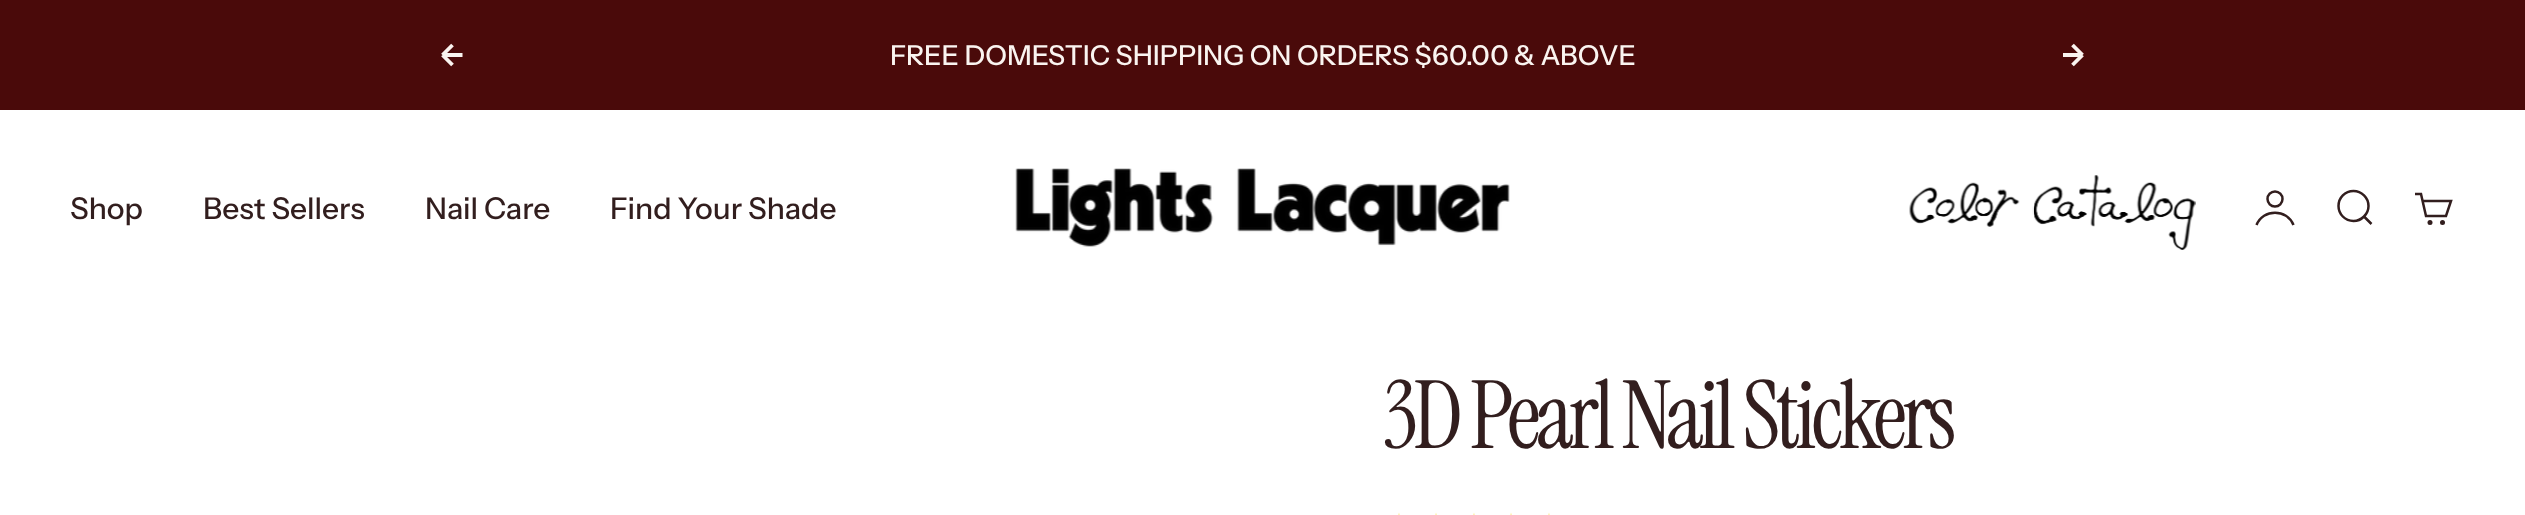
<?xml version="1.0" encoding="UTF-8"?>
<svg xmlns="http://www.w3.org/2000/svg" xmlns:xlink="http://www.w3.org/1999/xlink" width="2525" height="515">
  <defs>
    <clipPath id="clip1"><rect x="2063" y="43" width="25" height="25" /></clipPath>
  </defs>
  <rect width="100%" height="100%" fill="#ffffff" />
  <rect width="2525" height="110" fill="#4a0a0a" />
  <path d="M 452.5 45 l -10 10 m 0 0 l 10 10 m -10 -10 h 20" fill="none" stroke="#faf4f0" stroke-width="3.8" />
  <g clip-path="url(#clip1)">
    <path d="M 2072.5 45 l 10 10 m 0 0 l -10 10 m 10 -10 h -20" fill="none" stroke="#faf4f0" stroke-width="3.8" />
  </g>
  <image x="1015" y="168" width="495" height="79" xlink:href="image1.png" />
  <image x="1909" y="175" width="287" height="75" xlink:href="image2.png" />
  <path d="M 2293.5 225 c -6.5 -16.5 -30.5 -16.5 -37 0" fill="none" stroke="#321e1e" stroke-width="2.5" />
  <circle cx="2275" cy="199" r="7.5" fill="none" stroke="#321e1e" stroke-width="2.5" />
  <path d="M 2338.5 206 c 0 8 6.5 15 15 15 c 8 0 15 -7 15 -15 c 0 -8.5 -7 -15 -15 -15 c -8.5 0 -15 6.5 -15 15 z m 25.5 10.5 l 7.5 7.5" fill="none" stroke="#321e1e" stroke-width="2.5" />
  <path d="M 2415 194 h 6 l 5 22 h 20 l 5 -15 h -28" fill="none" stroke="#321e1e" stroke-width="2.5" />
  <circle cx="2430" cy="222.5" r="2.5" fill="#321e1e" />
  <circle cx="2442.5" cy="222.5" r="2.5" fill="#321e1e" />
  <path d="M 1399 512.5 l 4 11.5 l 12 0.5 l -10 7 l 4 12 l -10 -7 l -10.5 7 l 3.5 -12 l -9.5 -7 l 12 -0.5 z m 37 0 l 4.5 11.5 l 12 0.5 l -9.5 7 l 3.5 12 l -10.5 -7 l -10 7 l 4 -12 l -10 -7 l 12 -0.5 z" fill="#fff1aa" />
  <path d="M 1474 512.5 l 4 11.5 l 12 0.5 l -10 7 l 4 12 l -10 -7 l -10.5 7 l 3.5 -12 l -9.5 -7 l 12 -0.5 z m 37 0 l 4.5 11.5 l 12 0.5 l -9.5 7 l 3.5 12 l -10.5 -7 l -10 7 l 4 -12 l -10 -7 l 12 -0.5 z" fill="#fff1aa" />
  <path d="M 1549 512.5 l 4 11.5 l 12 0.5 l -10 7 l 4 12 l -10 -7 l -10.5 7 l 3.5 -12 l -9.5 -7 l 12 -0.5 z" fill="#fff1aa" />
  <text x="890" y="65" style="font-family: Instrument Sans; font-size: 27.5px; font-weight: 500; fill: #faf4f0">FREE DOMESTIC SHIPPING ON ORDERS $60.00 &amp; ABOVE</text>
  <text x="70" y="219" style="font-family: Instrument Sans; font-size: 30px; font-weight: 500; fill: #321e1e">Shop</text>
  <text x="203" y="219" style="font-family: Instrument Sans; font-size: 30px; font-weight: 500; fill: #321e1e">Best Sellers</text>
  <text x="425" y="219" style="font-family: Instrument Sans; font-size: 30px; font-weight: 500; fill: #321e1e">Nail Care</text>
  <text x="610" y="219" style="font-family: Instrument Sans; font-size: 30px; font-weight: 500; fill: #321e1e">Find Your Shade</text>
  <text x="1383" y="448" style="font-family: Instrument Serif; font-size: 94.25px; letter-spacing: -4.75px; fill: #321e1e">3D Pearl Nail Stickers</text>
</svg>
